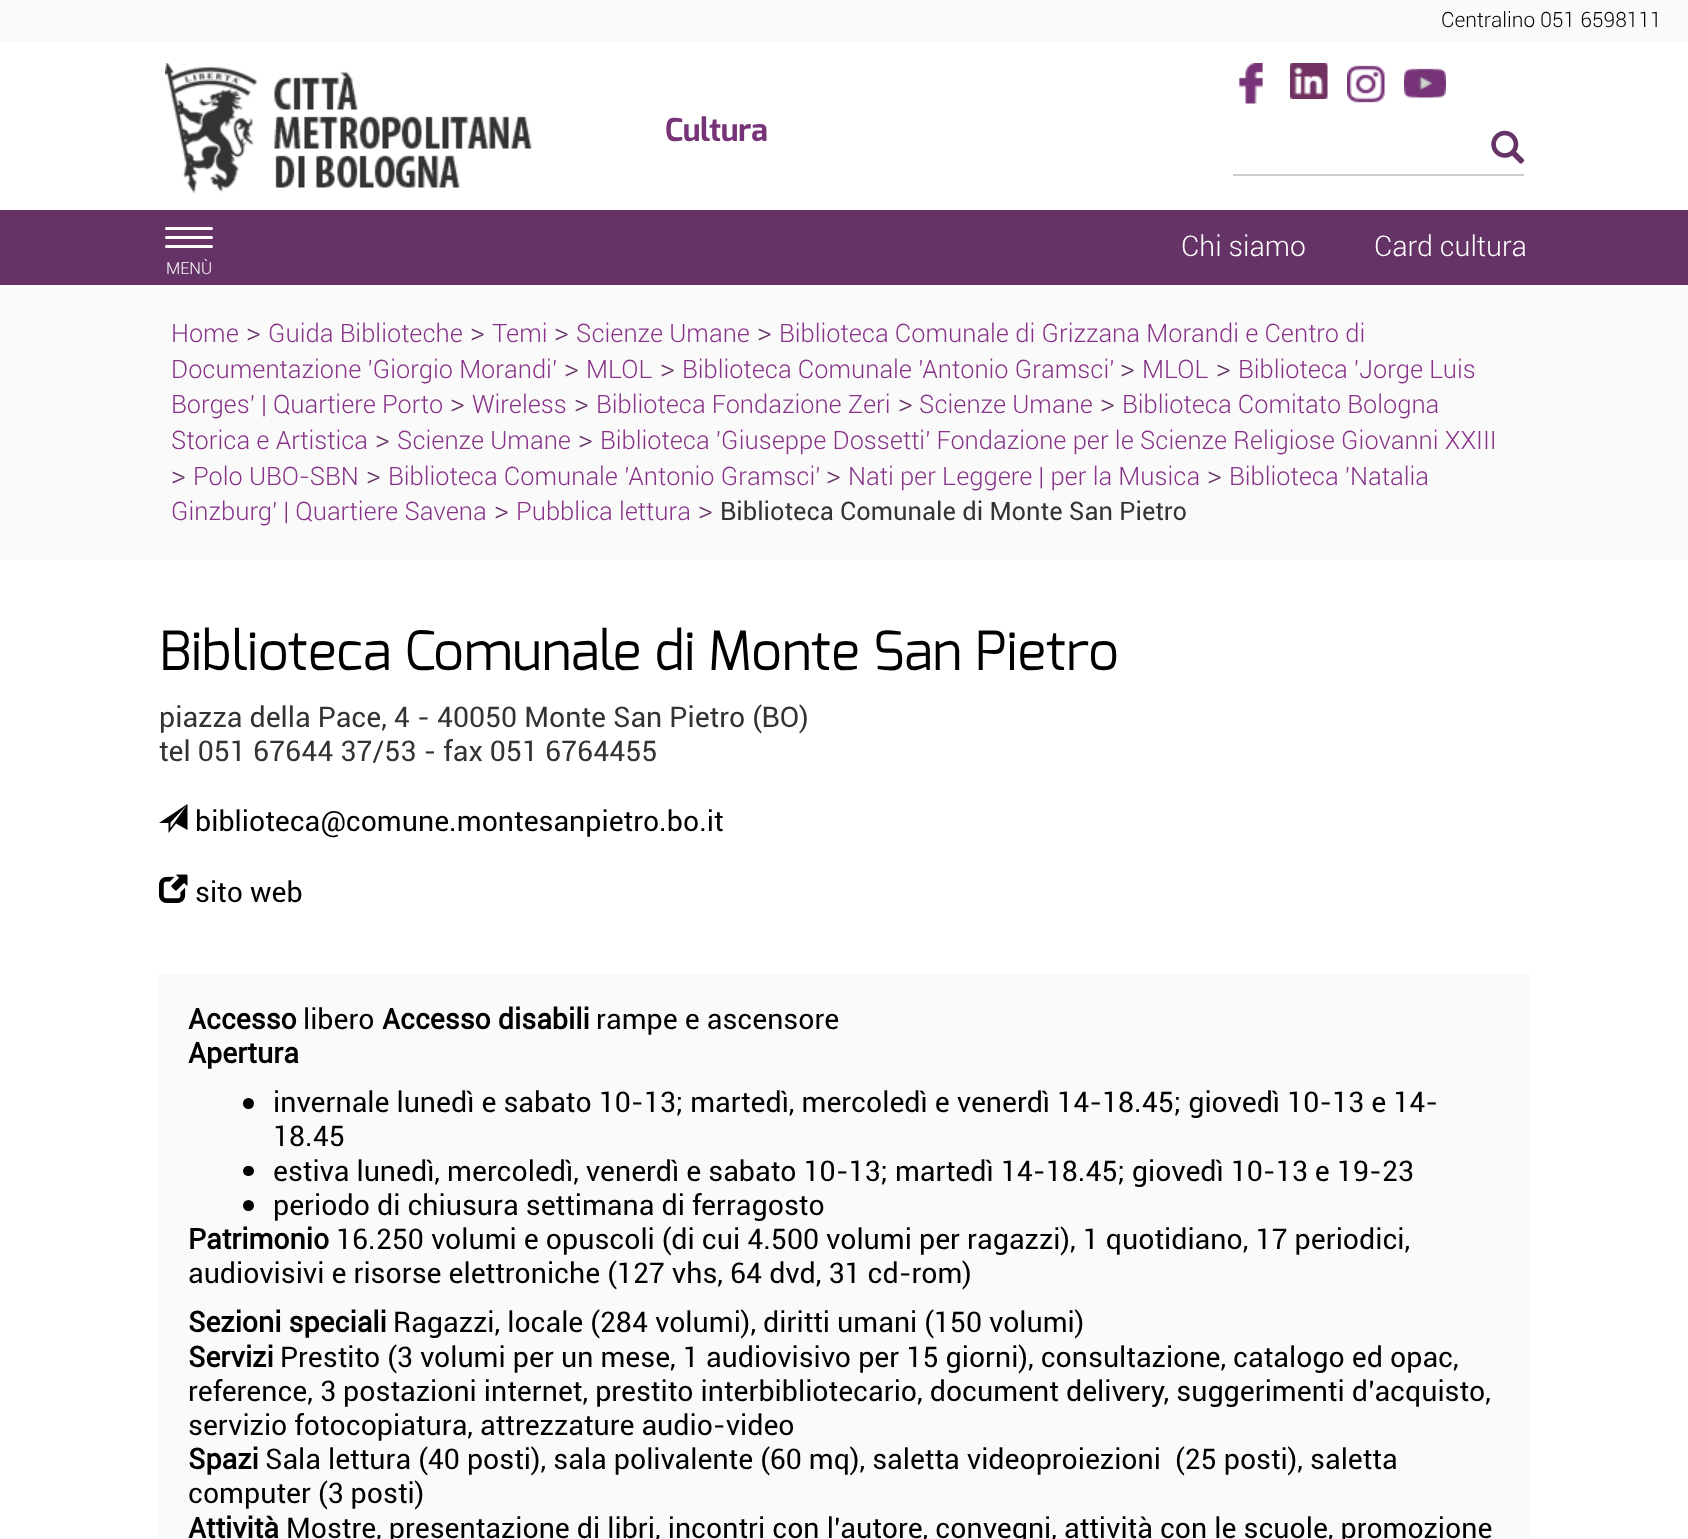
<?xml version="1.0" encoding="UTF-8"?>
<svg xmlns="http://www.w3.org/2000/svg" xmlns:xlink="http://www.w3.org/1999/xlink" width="1688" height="1539">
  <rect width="100%" height="100%" fill="#ffffff" />
  <rect width="1688" height="42" fill="#fafafa" />
  <image x="165" y="63" width="367" height="131" xlink:href="image1.png" />
  <image x="1239" y="63" width="24" height="41" xlink:href="image2.png" />
  <image x="1290" y="63" width="38" height="36" xlink:href="image3.png" />
  <image x="1347" y="65" width="38" height="38" xlink:href="image4.png" />
  <image x="1404" y="68" width="42" height="30" xlink:href="image5.png" />
  <image x="1491" y="130" width="34" height="34" xlink:href="image6.png" />
  <rect x="1233" y="174" width="291" height="2" fill="#cccccc" />
  <rect y="210" width="1688" height="75" fill="#663366" />
  <rect x="165" y="227" width="48" height="3" rx="1.5" fill="#ffffff" />
  <rect x="165" y="236" width="48" height="3" rx="1.5" fill="#ffffff" />
  <rect x="165" y="245" width="48" height="3" rx="1.5" fill="#ffffff" />
  <rect y="285" width="1688" height="275" fill="#fafafa" />
  <path d="M 187.5 830 l -11.5 -6.5 l -7.5 9.5 v -10 h -9.5 l 28.5 -19 z m -17 -7.5 v 5.5 l 16 -22.5 z" fill="#000000" />
  <image x="159" y="874" width="29" height="29" xlink:href="image7.png" />
  <rect x="159" y="974" width="1371" height="565" fill="#fafafa" />
  <circle cx="248.5" cy="1103.5" r="5.5" fill="#000000" />
  <rect x="243" y="1166" width="11" height="10" rx="5" fill="#000000" />
  <circle cx="248.5" cy="1205.5" r="5.5" fill="#000000" />
  <text x="1441" y="27" style="font-family: Roboto; font-size: 21px; font-weight: 300; fill: #000000">Centralino 051 6598111</text>
  <text x="665" y="141" style="font-family: Exo; font-size: 31.5px; font-weight: bold; fill: #773377">Cultura</text>
  <text x="1181" y="256" style="font-family: Roboto; font-size: 28.5px; font-weight: 300; fill: #ffffff">Chi siamo</text>
  <text x="1374" y="256" style="font-family: Roboto; font-size: 28.5px; font-weight: 300; fill: #ffffff">Card cultura</text>
  <text x="166" y="274" style="font-family: Roboto; font-size: 16.5px; font-weight: 300; fill: #ffffff">MENÙ</text>
  <text x="171" y="342" style="font-family: Roboto; font-size: 25.5px; font-weight: 300; fill: #883388">Home</text>
  <text x="246" y="342" style="font-family: Roboto; font-size: 28.5px; font-weight: 300; fill: #663366">&gt;</text>
  <text x="268" y="342" style="font-family: Roboto; font-size: 25.5px; font-weight: 300; fill: #883388">Guida Biblioteche</text>
  <text x="470" y="342" style="font-family: Roboto; font-size: 28.5px; font-weight: 300; fill: #663366">&gt;</text>
  <text x="492" y="342" style="font-family: Roboto; font-size: 25.5px; font-weight: 300; fill: #883388">Temi</text>
  <text x="554" y="342" style="font-family: Roboto; font-size: 28.5px; font-weight: 300; fill: #663366">&gt;</text>
  <text x="576" y="342" style="font-family: Roboto; font-size: 25.5px; font-weight: 300; fill: #883388">Scienze Umane</text>
  <text x="757" y="342" style="font-family: Roboto; font-size: 28.5px; font-weight: 300; fill: #663366">&gt;</text>
  <text x="779" y="342" style="font-family: Roboto; font-size: 25.5px; font-weight: 300; fill: #883388">Biblioteca Comunale di Grizzana Morandi e Centro di</text>
  <text x="171" y="378" style="font-family: Roboto; font-size: 25.5px; font-weight: 300; fill: #883388">Documentazione 'Giorgio Morandi'</text>
  <text x="564" y="378" style="font-family: Roboto; font-size: 28.5px; font-weight: 300; fill: #663366">&gt;</text>
  <text x="586" y="378" style="font-family: Roboto; font-size: 25.5px; font-weight: 300; fill: #883388">MLOL</text>
  <text x="660" y="378" style="font-family: Roboto; font-size: 28.5px; font-weight: 300; fill: #663366">&gt;</text>
  <text x="682" y="378" style="font-family: Roboto; font-size: 25.5px; font-weight: 300; fill: #883388">Biblioteca Comunale 'Antonio Gramsci'</text>
  <text x="1120" y="378" style="font-family: Roboto; font-size: 28.5px; font-weight: 300; fill: #663366">&gt;</text>
  <text x="1142" y="378" style="font-family: Roboto; font-size: 25.5px; font-weight: 300; fill: #883388">MLOL</text>
  <text x="1216" y="378" style="font-family: Roboto; font-size: 28.5px; font-weight: 300; fill: #663366">&gt;</text>
  <text x="1238" y="378" style="font-family: Roboto; font-size: 25.5px; font-weight: 300; fill: #883388">Biblioteca 'Jorge Luis</text>
  <text x="171" y="413" style="font-family: Roboto; font-size: 25.5px; font-weight: 300; fill: #883388">Borges' | Quartiere Porto</text>
  <text x="450" y="413" style="font-family: Roboto; font-size: 28.5px; font-weight: 300; fill: #663366">&gt;</text>
  <text x="472" y="413" style="font-family: Roboto; font-size: 25.5px; font-weight: 300; fill: #883388">Wireless</text>
  <text x="574" y="413" style="font-family: Roboto; font-size: 28.5px; font-weight: 300; fill: #663366">&gt;</text>
  <text x="596" y="413" style="font-family: Roboto; font-size: 25.5px; font-weight: 300; fill: #883388">Biblioteca Fondazione Zeri</text>
  <text x="898" y="413" style="font-family: Roboto; font-size: 28.5px; font-weight: 300; fill: #663366">&gt;</text>
  <text x="919" y="413" style="font-family: Roboto; font-size: 25.5px; font-weight: 300; fill: #883388">Scienze Umane</text>
  <text x="1100" y="413" style="font-family: Roboto; font-size: 28.5px; font-weight: 300; fill: #663366">&gt;</text>
  <text x="1122" y="413" style="font-family: Roboto; font-size: 25.5px; font-weight: 300; fill: #883388">Biblioteca Comitato Bologna</text>
  <text x="171" y="449" style="font-family: Roboto; font-size: 25.5px; font-weight: 300; fill: #883388">Storica e Artistica</text>
  <text x="375" y="449" style="font-family: Roboto; font-size: 28.5px; font-weight: 300; fill: #663366">&gt;</text>
  <text x="397" y="449" style="font-family: Roboto; font-size: 25.5px; font-weight: 300; fill: #883388">Scienze Umane</text>
  <text x="578" y="449" style="font-family: Roboto; font-size: 28.5px; font-weight: 300; fill: #663366">&gt;</text>
  <text x="600" y="449" style="font-family: Roboto; font-size: 25.5px; font-weight: 300; fill: #883388">Biblioteca 'Giuseppe Dossetti' Fondazione per le Scienze Religiose Giovanni XXIII</text>
  <text x="171" y="485" style="font-family: Roboto; font-size: 28.5px; font-weight: 300; fill: #663366">&gt;</text>
  <text x="193" y="485" style="font-family: Roboto; font-size: 25.5px; font-weight: 300; fill: #883388">Polo UBO-SBN</text>
  <text x="366" y="485" style="font-family: Roboto; font-size: 28.5px; font-weight: 300; fill: #663366">&gt;</text>
  <text x="388" y="485" style="font-family: Roboto; font-size: 25.5px; font-weight: 300; fill: #883388">Biblioteca Comunale 'Antonio Gramsci'</text>
  <text x="826" y="485" style="font-family: Roboto; font-size: 28.5px; font-weight: 300; fill: #663366">&gt;</text>
  <text x="848" y="485" style="font-family: Roboto; font-size: 25.5px; font-weight: 300; fill: #883388">Nati per Leggere | per la Musica</text>
  <text x="1207" y="485" style="font-family: Roboto; font-size: 28.5px; font-weight: 300; fill: #663366">&gt;</text>
  <text x="1229" y="485" style="font-family: Roboto; font-size: 25.5px; font-weight: 300; fill: #883388">Biblioteca 'Natalia</text>
  <text x="171" y="520" style="font-family: Roboto; font-size: 25.5px; font-weight: 300; fill: #883388">Ginzburg' | Quartiere Savena</text>
  <text x="494" y="520" style="font-family: Roboto; font-size: 28.5px; font-weight: 300; fill: #663366">&gt;</text>
  <text x="516" y="520" style="font-family: Roboto; font-size: 25.5px; font-weight: 300; fill: #883388">Pubblica lettura</text>
  <text x="698" y="520" style="font-family: Roboto; font-size: 28.5px; font-weight: 300; fill: #663366">&gt;</text>
  <text x="720" y="520" style="font-family: Roboto; font-size: 25.5px; fill: #333333">Biblioteca Comunale di Monte San Pietro</text>
  <text x="159" y="670" style="font-family: Exo; font-size: 54px; fill: #000000">Biblioteca Comunale di Monte San Pietro</text>
  <text x="159" y="727" style="font-family: Roboto; font-size: 28.5px; fill: #333333">piazza della Pace, 4 - 40050 Monte San Pietro (BO)</text>
  <text x="159" y="761" style="font-family: Roboto; font-size: 28.5px; fill: #333333">tel 051 67644 37/53 - fax 051 6764455</text>
  <text x="195" y="831" style="font-family: Roboto; font-size: 28.5px; fill: #000000">biblioteca@comune.montesanpietro.bo.it</text>
  <text x="195" y="902" style="font-family: Roboto; font-size: 28.5px; fill: #000000">sito web</text>
  <text x="188" y="1029" style="font-family: Roboto; font-size: 28.5px; font-weight: bold; fill: #000000">Accesso</text>
  <text x="303" y="1029" style="font-family: Roboto; font-size: 28.5px; fill: #000000">libero</text>
  <text x="382" y="1029" style="font-family: Roboto; font-size: 28.5px; font-weight: bold; fill: #000000">Accesso disabili</text>
  <text x="596" y="1029" style="font-family: Roboto; font-size: 28.5px; fill: #000000">rampe e ascensore</text>
  <text x="188" y="1063" style="font-family: Roboto; font-size: 28.5px; font-weight: bold; fill: #000000">Apertura</text>
  <text x="273" y="1112" style="font-family: Roboto; font-size: 28.5px; fill: #000000">invernale lunedì e sabato 10-13; martedì, mercoledì e venerdì 14-18.45; giovedì 10-13 e 14-</text>
  <text x="273" y="1146" style="font-family: Roboto; font-size: 28.5px; fill: #000000">18.45</text>
  <text x="273" y="1181" style="font-family: Roboto; font-size: 28.5px; fill: #000000">estiva lunedì, mercoledì, venerdì e sabato 10-13; martedì 14-18.45; giovedì 10-13 e 19-23</text>
  <text x="273" y="1215" style="font-family: Roboto; font-size: 28.5px; fill: #000000">periodo di chiusura settimana di ferragosto</text>
  <text x="188" y="1249" style="font-family: Roboto; font-size: 28.5px; font-weight: bold; fill: #000000">Patrimonio</text>
  <text x="336" y="1249" style="font-family: Roboto; font-size: 28.5px; fill: #000000">16.250 volumi e opuscoli (di cui 4.500 volumi per ragazzi), 1 quotidiano, 17 periodici,</text>
  <text x="188" y="1283" style="font-family: Roboto; font-size: 28.5px; fill: #000000">audiovisivi e risorse elettroniche (127 vhs, 64 dvd, 31 cd-rom)</text>
  <text x="188" y="1332" style="font-family: Roboto; font-size: 28.5px; font-weight: bold; fill: #000000">Sezioni speciali</text>
  <text x="393" y="1332" style="font-family: Roboto; font-size: 28.5px; fill: #000000">Ragazzi, locale (284 volumi), diritti umani (150 volumi)</text>
  <text x="188" y="1367" style="font-family: Roboto; font-size: 28.5px; font-weight: bold; fill: #000000">Servizi</text>
  <text x="280" y="1367" style="font-family: Roboto; font-size: 28.5px; fill: #000000">Prestito (3 volumi per un mese, 1 audiovisivo per 15 giorni), consultazione, catalogo ed opac,</text>
  <text x="188" y="1401" style="font-family: Roboto; font-size: 28.5px; fill: #000000">reference, 3 postazioni internet, prestito interbibliotecario, document delivery, suggerimenti d’acquisto,</text>
  <text x="188" y="1435" style="font-family: Roboto; font-size: 28.5px; fill: #000000">servizio fotocopiatura, attrezzature audio-video</text>
  <text x="188" y="1469" style="font-family: Roboto; font-size: 28.5px; font-weight: bold; fill: #000000">Spazi</text>
  <text x="265" y="1469" style="font-family: Roboto; font-size: 28.5px; fill: #000000" xml:space="preserve">Sala lettura (40 posti), sala polivalente (60 mq), saletta videoproiezioni  (25 posti), saletta</text>
  <text x="188" y="1503" style="font-family: Roboto; font-size: 28.5px; fill: #000000">computer (3 posti)</text>
  <text x="188" y="1538" style="font-family: Roboto; font-size: 28.5px; font-weight: bold; fill: #000000">Attività</text>
  <text x="286" y="1538" style="font-family: Roboto; font-size: 28.5px; fill: #000000">Mostre, presentazione di libri, incontri con l’autore, convegni, attività con le scuole, promozione</text>
</svg>
